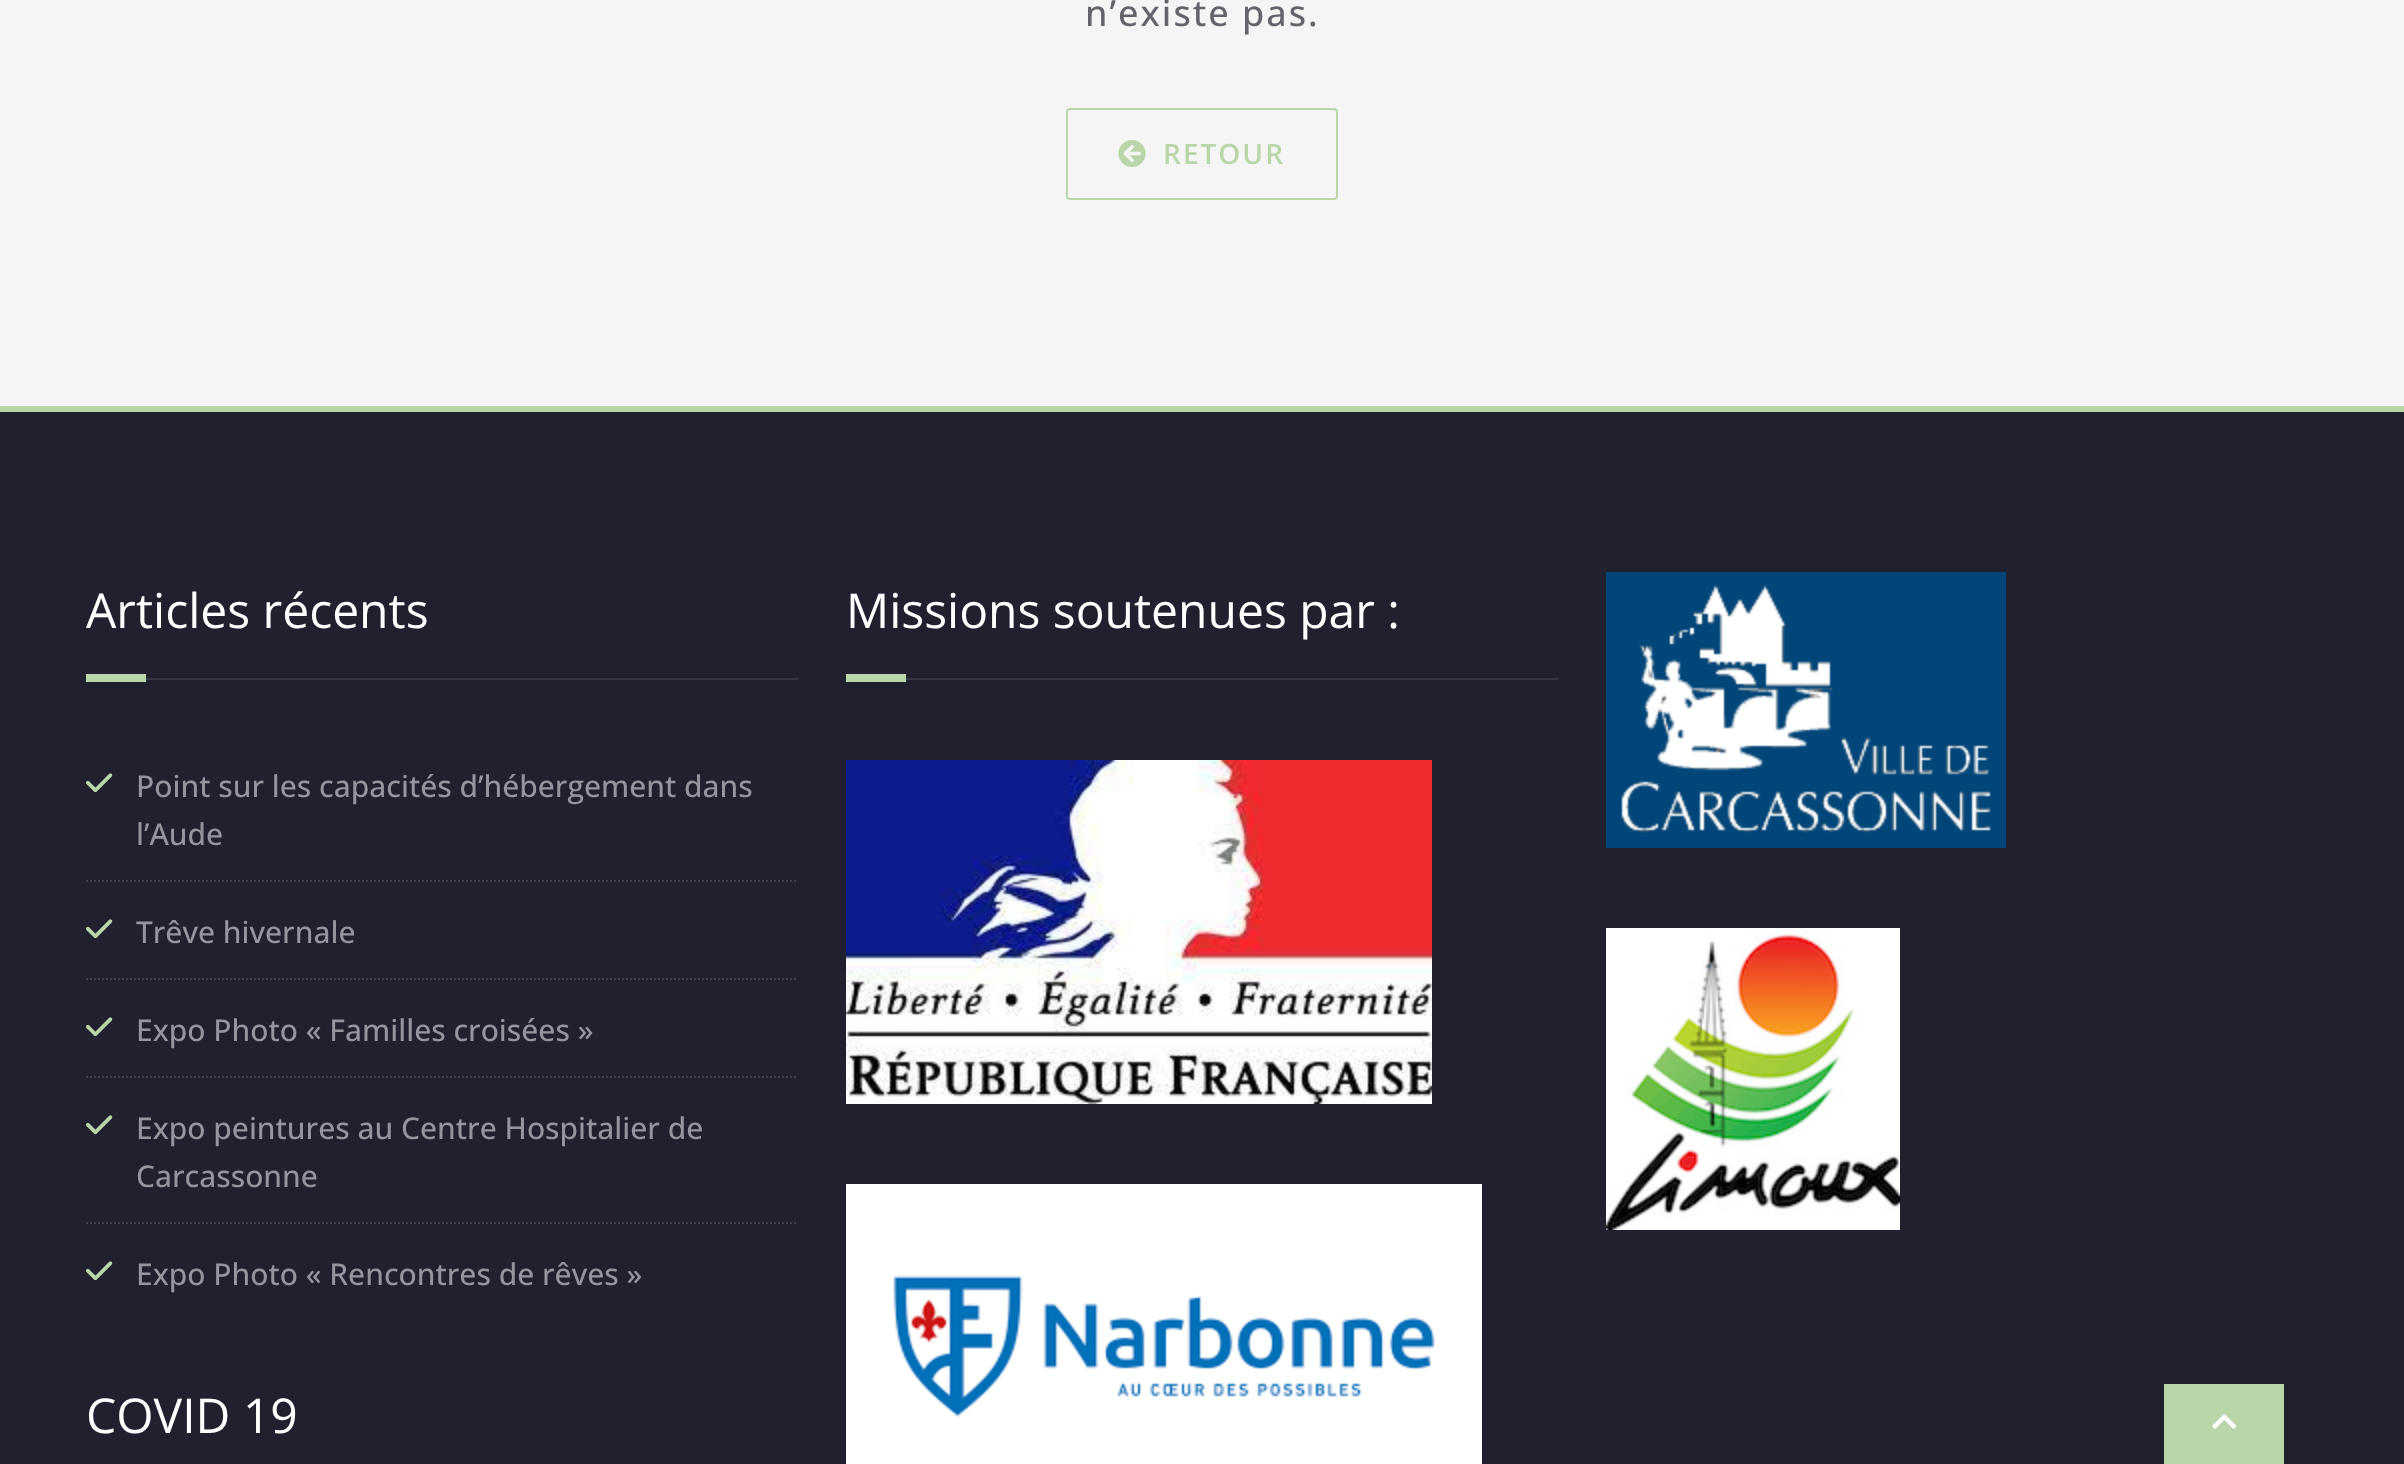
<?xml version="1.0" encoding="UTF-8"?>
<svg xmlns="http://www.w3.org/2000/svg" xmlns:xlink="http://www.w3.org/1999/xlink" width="2404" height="1464">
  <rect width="100%" height="100%" fill="#f5f5f5" />
  <rect x="1067" y="109" width="270" height="90" rx="3" fill="none" stroke="#bad6a9" stroke-width="2" />
  <image x="1118" y="140" width="28" height="27" xlink:href="image1.png" />
  <rect y="412" width="2404" height="1052" fill="#21202e" />
  <rect y="406" width="2404" height="6" fill="#bad6a9" />
  <rect x="146" y="678" width="652" height="2" fill="#363544" />
  <rect x="86" y="674" width="60" height="8" fill="#bad6a9" />
  <path d="M 86 881 h 712" fill="none" stroke="#403f4e" stroke-width="2" stroke-dasharray="2 2" />
  <image x="86" y="773" width="27" height="20" xlink:href="image2.png" />
  <path d="M 86 979 h 712" fill="none" stroke="#403f4e" stroke-width="2" stroke-dasharray="2 2" />
  <image x="86" y="919" width="27" height="20" xlink:href="image2.png" />
  <path d="M 86 1077 h 712" fill="none" stroke="#403f4e" stroke-width="2" stroke-dasharray="2 2" />
  <image x="86" y="1017" width="27" height="20" xlink:href="image2.png" />
  <path d="M 86 1223 h 712" fill="none" stroke="#403f4e" stroke-width="2" stroke-dasharray="2 2" />
  <image x="86" y="1115" width="27" height="20" xlink:href="image2.png" />
  <image x="86" y="1261" width="27" height="20" xlink:href="image2.png" />
  <rect x="906" y="678" width="652" height="2" fill="#363544" />
  <rect x="846" y="674" width="60" height="8" fill="#bad6a9" />
  <image x="846" y="760" width="586" height="344" xlink:href="image3.png" />
  <image x="846" y="1184" width="636" height="280" xlink:href="image4.png" />
  <image x="1606" y="572" width="400" height="276" xlink:href="image5.png" />
  <image x="1606" y="928" width="294" height="302" xlink:href="image6.png" />
  <rect x="2164" y="1384" width="120" height="80" fill="#bad6a9" />
  <image x="2212" y="1414" width="25" height="15" xlink:href="image7.png" />
  <text x="1085" y="26" style="font-family: Open Sans; font-size: 36px; font-weight: 500; letter-spacing: 2px; fill: #64646d">n’existe pas.</text>
  <text x="1163" y="164" style="font-family: Open Sans; font-size: 28px; font-weight: 600; letter-spacing: 2px; fill: #bad6a9">RETOUR</text>
  <text x="86" y="628" style="font-family: Open Sans; font-size: 48px; fill: #ffffff">Articles récents</text>
  <text x="136" y="797" style="font-family: Open Sans; font-size: 30px; font-weight: 500; fill: #9595a0">Point sur les capacités d’hébergement dans</text>
  <text x="136" y="845" style="font-family: Open Sans; font-size: 30px; font-weight: 500; fill: #9595a0">l’Aude</text>
  <text x="136" y="943" style="font-family: Open Sans; font-size: 30px; font-weight: 500; fill: #9595a0">Trêve hivernale</text>
  <text x="136" y="1041" style="font-family: Open Sans; font-size: 30px; font-weight: 500; fill: #9595a0">Expo Photo « Familles croisées »</text>
  <text x="136" y="1139" style="font-family: Open Sans; font-size: 30px; font-weight: 500; fill: #9595a0">Expo peintures au Centre Hospitalier de</text>
  <text x="136" y="1187" style="font-family: Open Sans; font-size: 30px; font-weight: 500; fill: #9595a0">Carcassonne</text>
  <text x="136" y="1285" style="font-family: Open Sans; font-size: 30px; font-weight: 500; fill: #9595a0">Expo Photo « Rencontres de rêves »</text>
  <text x="86" y="1433" style="font-family: Open Sans; font-size: 48px; fill: #ffffff">COVID 19</text>
  <text x="846" y="628" style="font-family: Open Sans; font-size: 48px; fill: #ffffff">Missions soutenues par :</text>
</svg>
